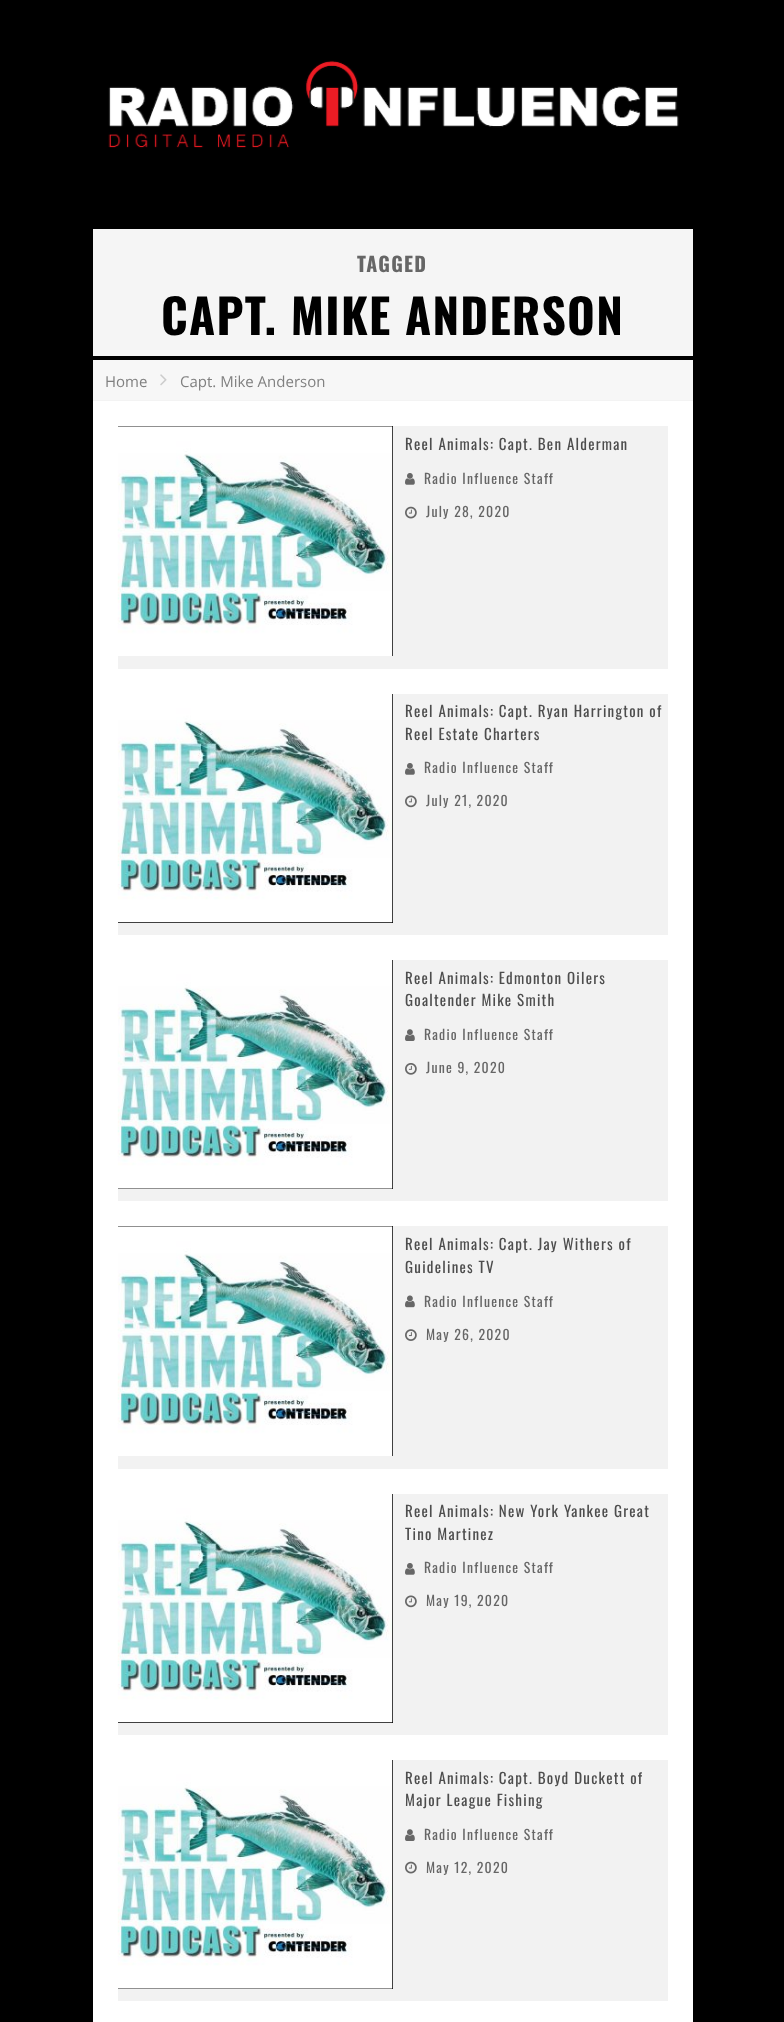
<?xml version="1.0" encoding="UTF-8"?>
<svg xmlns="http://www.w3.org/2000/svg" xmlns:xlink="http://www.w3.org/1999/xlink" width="784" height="2022">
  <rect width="100%" height="100%" fill="#000000" />
  <image x="108" y="60" width="571" height="89" xlink:href="image1.png" />
  <rect x="93" y="401" width="600" height="1621" fill="#ffffff" />
  <rect x="93" y="229" width="600" height="127" fill="#f5f5f5" />
  <rect x="93" y="360" width="600" height="40" fill="#f7f7f7" />
  <rect x="93" y="400" width="600" height="1" fill="#f3f3f3" />
  <image x="160" y="374" width="7" height="12" xlink:href="image2.png" />
  <rect x="118" y="426" width="550" height="243" fill="#f2f2f2" />
  <rect x="118" y="426" width="275" height="230" fill="#000000" />
  <image x="117" y="426" width="276" height="230" xlink:href="image3.png" />
  <image x="405" y="473" width="10" height="12" xlink:href="image4.png" />
  <image x="405" y="506" width="12" height="13" xlink:href="image5.png" />
  <rect x="118" y="694" width="550" height="241" fill="#f2f2f2" />
  <rect x="118" y="694" width="275" height="229" fill="#000000" />
  <image x="117" y="694" width="276" height="229" xlink:href="image6.png" />
  <image x="405" y="763" width="10" height="12" xlink:href="image4.png" />
  <image x="405" y="795" width="12" height="13" xlink:href="image7.png" />
  <rect x="118" y="960" width="550" height="241" fill="#f2f2f2" />
  <rect x="118" y="960" width="275" height="229" fill="#000000" />
  <image x="117" y="960" width="276" height="229" xlink:href="image8.png" />
  <image x="405" y="1029" width="10" height="12" xlink:href="image9.png" />
  <image x="405" y="1063" width="12" height="12" xlink:href="image10.png" />
  <rect x="118" y="1226" width="550" height="243" fill="#f2f2f2" />
  <rect x="118" y="1226" width="275" height="230" fill="#000000" />
  <image x="117" y="1226" width="276" height="230" xlink:href="image11.png" />
  <image x="405" y="1295" width="10" height="13" xlink:href="image12.png" />
  <image x="405" y="1329" width="12" height="12" xlink:href="image13.png" />
  <rect x="118" y="1494" width="550" height="241" fill="#f2f2f2" />
  <rect x="118" y="1494" width="275" height="229" fill="#000000" />
  <image x="117" y="1494" width="276" height="229" xlink:href="image6.png" />
  <image x="405" y="1563" width="10" height="12" xlink:href="image4.png" />
  <image x="405" y="1595" width="12" height="13" xlink:href="image7.png" />
  <rect x="118" y="1760" width="550" height="241" fill="#f2f2f2" />
  <rect x="118" y="1760" width="275" height="229" fill="#000000" />
  <image x="117" y="1760" width="276" height="229" xlink:href="image8.png" />
  <image x="405" y="1829" width="10" height="12" xlink:href="image9.png" />
  <image x="405" y="1861" width="12" height="13" xlink:href="image5.png" />
  <text x="357" y="272" style="font-family: Oswald; font-size: 20px; font-weight: bold; letter-spacing: 1.25px; fill: #666666">TAGGED</text>
  <text x="161" y="335" style="font-family: Oswald; font-size: 47.5px; font-weight: bold; letter-spacing: 1.25px; fill: #000000">CAPT. MIKE ANDERSON</text>
  <text x="105" y="387" style="font-family: Open Sans; font-size: 15px; fill: #808080">Home</text>
  <text x="180" y="387" style="font-family: Open Sans; font-size: 15px; fill: #808080">Capt. Mike Anderson</text>
  <text x="405" y="450" style="font-family: Oswald; font-size: 15px; letter-spacing: 1.25px; fill: #4d4d4d">Reel Animals: Capt. Ben Alderman</text>
  <text x="424" y="484" style="font-family: Oswald; font-size: 13.75px; letter-spacing: 1.25px; fill: #666666">Radio Influence Staff</text>
  <text x="426" y="517" style="font-family: Oswald; font-size: 13.75px; letter-spacing: 1.25px; fill: #666666">July 28, 2020</text>
  <text x="405" y="717" style="font-family: Oswald; font-size: 15px; letter-spacing: 1.25px; fill: #4d4d4d">Reel Animals: Capt. Ryan Harrington of</text>
  <text x="405" y="740" style="font-family: Oswald; font-size: 15px; letter-spacing: 1.25px; fill: #4d4d4d">Reel Estate Charters</text>
  <text x="424" y="773" style="font-family: Oswald; font-size: 13.75px; letter-spacing: 1.25px; fill: #666666">Radio Influence Staff</text>
  <text x="426" y="806" style="font-family: Oswald; font-size: 13.75px; letter-spacing: 1.25px; fill: #666666">July 21, 2020</text>
  <text x="405" y="984" style="font-family: Oswald; font-size: 15px; letter-spacing: 1.25px; fill: #4d4d4d">Reel Animals: Edmonton Oilers</text>
  <text x="405" y="1006" style="font-family: Oswald; font-size: 15px; letter-spacing: 1.25px; fill: #4d4d4d">Goaltender Mike Smith</text>
  <text x="424" y="1040" style="font-family: Oswald; font-size: 13.75px; letter-spacing: 1.25px; fill: #666666">Radio Influence Staff</text>
  <text x="426" y="1073" style="font-family: Oswald; font-size: 13.75px; letter-spacing: 1.25px; fill: #666666">June 9, 2020</text>
  <text x="405" y="1250" style="font-family: Oswald; font-size: 15px; letter-spacing: 1.25px; fill: #4d4d4d">Reel Animals: Capt. Jay Withers of</text>
  <text x="405" y="1273" style="font-family: Oswald; font-size: 15px; letter-spacing: 1.25px; fill: #4d4d4d">Guidelines TV</text>
  <text x="424" y="1307" style="font-family: Oswald; font-size: 13.75px; letter-spacing: 1.25px; fill: #666666">Radio Influence Staff</text>
  <text x="426" y="1340" style="font-family: Oswald; font-size: 13.75px; letter-spacing: 1.25px; fill: #666666">May 26, 2020</text>
  <text x="405" y="1517" style="font-family: Oswald; font-size: 15px; letter-spacing: 1.25px; fill: #4d4d4d">Reel Animals: New York Yankee Great</text>
  <text x="405" y="1540" style="font-family: Oswald; font-size: 15px; letter-spacing: 1.25px; fill: #4d4d4d">Tino Martinez</text>
  <text x="424" y="1573" style="font-family: Oswald; font-size: 13.75px; letter-spacing: 1.25px; fill: #666666">Radio Influence Staff</text>
  <text x="426" y="1606" style="font-family: Oswald; font-size: 13.75px; letter-spacing: 1.25px; fill: #666666">May 19, 2020</text>
  <text x="405" y="1784" style="font-family: Oswald; font-size: 15px; letter-spacing: 1.25px; fill: #4d4d4d">Reel Animals: Capt. Boyd Duckett of</text>
  <text x="405" y="1806" style="font-family: Oswald; font-size: 15px; letter-spacing: 1.25px; fill: #4d4d4d">Major League Fishing</text>
  <text x="424" y="1840" style="font-family: Oswald; font-size: 13.75px; letter-spacing: 1.25px; fill: #666666">Radio Influence Staff</text>
  <text x="426" y="1873" style="font-family: Oswald; font-size: 13.75px; letter-spacing: 1.25px; fill: #666666">May 12, 2020</text>
</svg>
